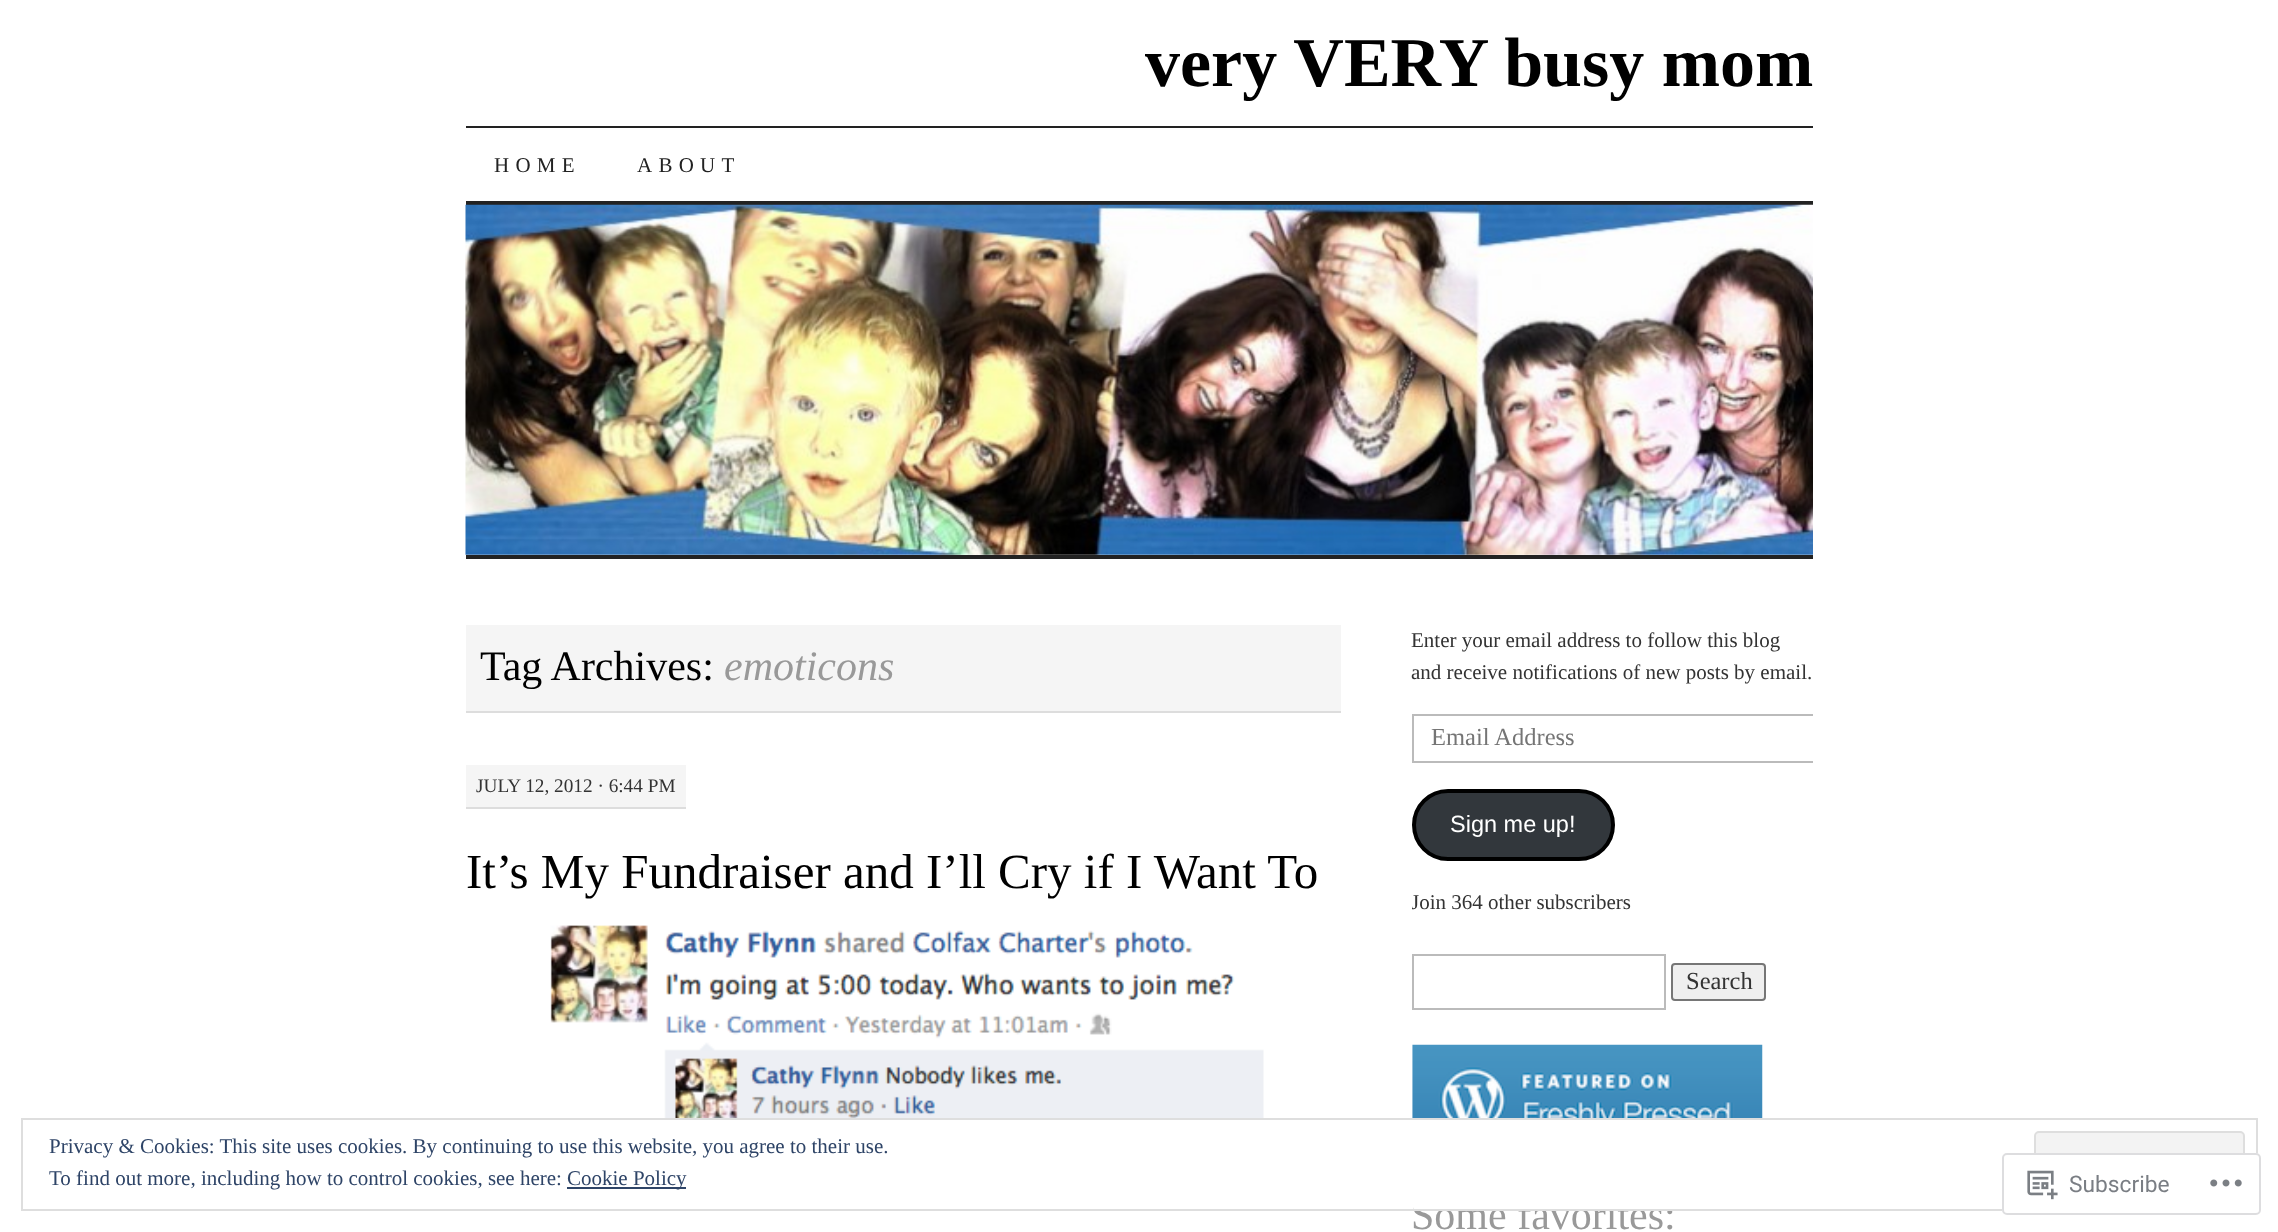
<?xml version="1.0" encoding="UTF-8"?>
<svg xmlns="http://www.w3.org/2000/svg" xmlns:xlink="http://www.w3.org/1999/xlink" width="2278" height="1232">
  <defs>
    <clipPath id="clip1"><rect x="1412" y="625" width="401" height="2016" /></clipPath>
  </defs>
  <rect width="100%" height="100%" fill="#ffffff" />
  <rect x="466" y="126" width="1347" height="2" fill="#222222" />
  <rect x="466" y="201" width="1347" height="4" fill="#222222" />
  <image x="465" y="204" width="1348" height="351" xlink:href="image1.png" />
  <rect x="466" y="555" width="1347" height="4" fill="#222222" />
  <rect x="466" y="625" width="875" height="86" fill="#f5f5f5" />
  <rect x="466" y="711" width="875" height="2" fill="#dddddd" />
  <rect x="466" y="765" width="220" height="42" fill="#f5f5f5" />
  <rect x="466" y="807" width="220" height="2" fill="#dddddd" />
  <image x="550" y="925" width="714" height="193" xlink:href="image2.png" />
  <g clip-path="url(#clip1)">
    <rect x="1413" y="715" width="418" height="47" fill="none" stroke="#bbbbbb" stroke-width="2" />
  </g>
  <rect x="1414" y="791" width="199" height="68" rx="34" fill="#32373c" stroke="#000000" stroke-width="4" />
  <rect x="1413" y="955" width="252" height="54" fill="none" stroke="#bbbbbb" stroke-width="2" />
  <rect x="1672" y="964" width="93" height="36" rx="3" fill="#efefef" stroke="#767676" stroke-width="2" />
  <image x="1412" y="1044" width="351" height="74" xlink:href="image3.png" />
  <text x="1145" y="86" style="font-family: Liberation Serif; font-size: 70px; font-weight: bold; fill: #000000">very VERY busy mom</text>
  <text x="494" y="172" style="font-family: Liberation Serif; font-size: 21px; letter-spacing: 6.25px; fill: #222222">HOME</text>
  <text x="637" y="172" style="font-family: Liberation Serif; font-size: 21px; letter-spacing: 6.25px; fill: #222222">ABOUT</text>
  <text x="480" y="680" style="font-family: Liberation Serif; font-size: 42px; fill: #000000">Tag Archives:</text>
  <text x="724" y="680" style="font-family: Liberation Serif; font-size: 42px; font-style: italic; fill: #999999">emoticons</text>
  <text x="476" y="792" style="font-family: Liberation Serif; font-size: 19.25px; fill: #333333">JULY 12, 2012 · 6:44 PM</text>
  <text x="466" y="888" style="font-family: Liberation Serif; font-size: 49px; fill: #000000">It’s My Fundraiser and I’ll Cry if I Want To</text>
  <text x="1411" y="647" style="font-family: Liberation Serif; font-size: 21px; fill: #333333">Enter your email address to follow this blog</text>
  <text x="1411" y="679" style="font-family: Liberation Serif; font-size: 21px; fill: #333333">and receive notifications of new posts by email.</text>
  <text x="1431" y="745" style="font-family: Liberation Serif; font-size: 24.5px; fill: #757575">Email Address</text>
  <text x="1450" y="832" style="font-family: Liberation Sans; font-size: 23.5px; fill: #ffffff">Sign me up!</text>
  <g clip-path="url(#clip1)">
    <text x="1411" y="909" style="font-family: Liberation Serif; font-size: 21px; fill: #333333">Join 364 other subscribers</text>
  </g>
  <text x="1686" y="989" style="font-family: Liberation Serif; font-size: 24.5px; fill: #333333">Search</text>
  <text x="1411" y="1229" style="font-family: Liberation Serif; font-size: 42px; fill: #999999">Some favorites:</text>
  <rect x="1414" y="1199" width="211" height="10" fill="#ffffff" />
  <rect x="22" y="1119" width="2235" height="91" fill="none" stroke="#dedede" stroke-width="2" />
  <text x="49" y="1153" style="font-family: Liberation Serif; font-size: 21px; fill: #2e4467">Privacy &amp; Cookies: This site uses cookies. By continuing to use this website, you agree to their use.</text>
  <rect x="2035" y="1132" width="209" height="66" rx="4" fill="#f3f3f3" stroke="#dedede" stroke-width="2" />
  <text x="49" y="1185" style="font-family: Liberation Serif; font-size: 21px; fill: #2e4467">To find out more, including how to control cookies, see here:</text>
  <rect x="567" y="1187" width="119" height="2" fill="#2e4467" />
  <text x="567" y="1185" style="font-family: Liberation Serif; font-size: 21px; fill: #2e4467">Cookie Policy</text>
  <rect x="2002" y="1153" width="259" height="62" rx="5" fill="#ffffff" fill-opacity="0.98" />
  <rect x="2003" y="1154" width="257" height="60" rx="4" fill="none" stroke="#dcdcde" stroke-opacity="0.98" stroke-width="2" />
  <image x="2027" y="1170" width="31" height="30" xlink:href="image4.png" />
  <text x="2069" y="1192" style="font-family: Roboto; font-size: 22.75px; fill: #7a7e84">Subscribe</text>
  <image x="2210" y="1179" width="32" height="8" xlink:href="image5.png" />
</svg>
